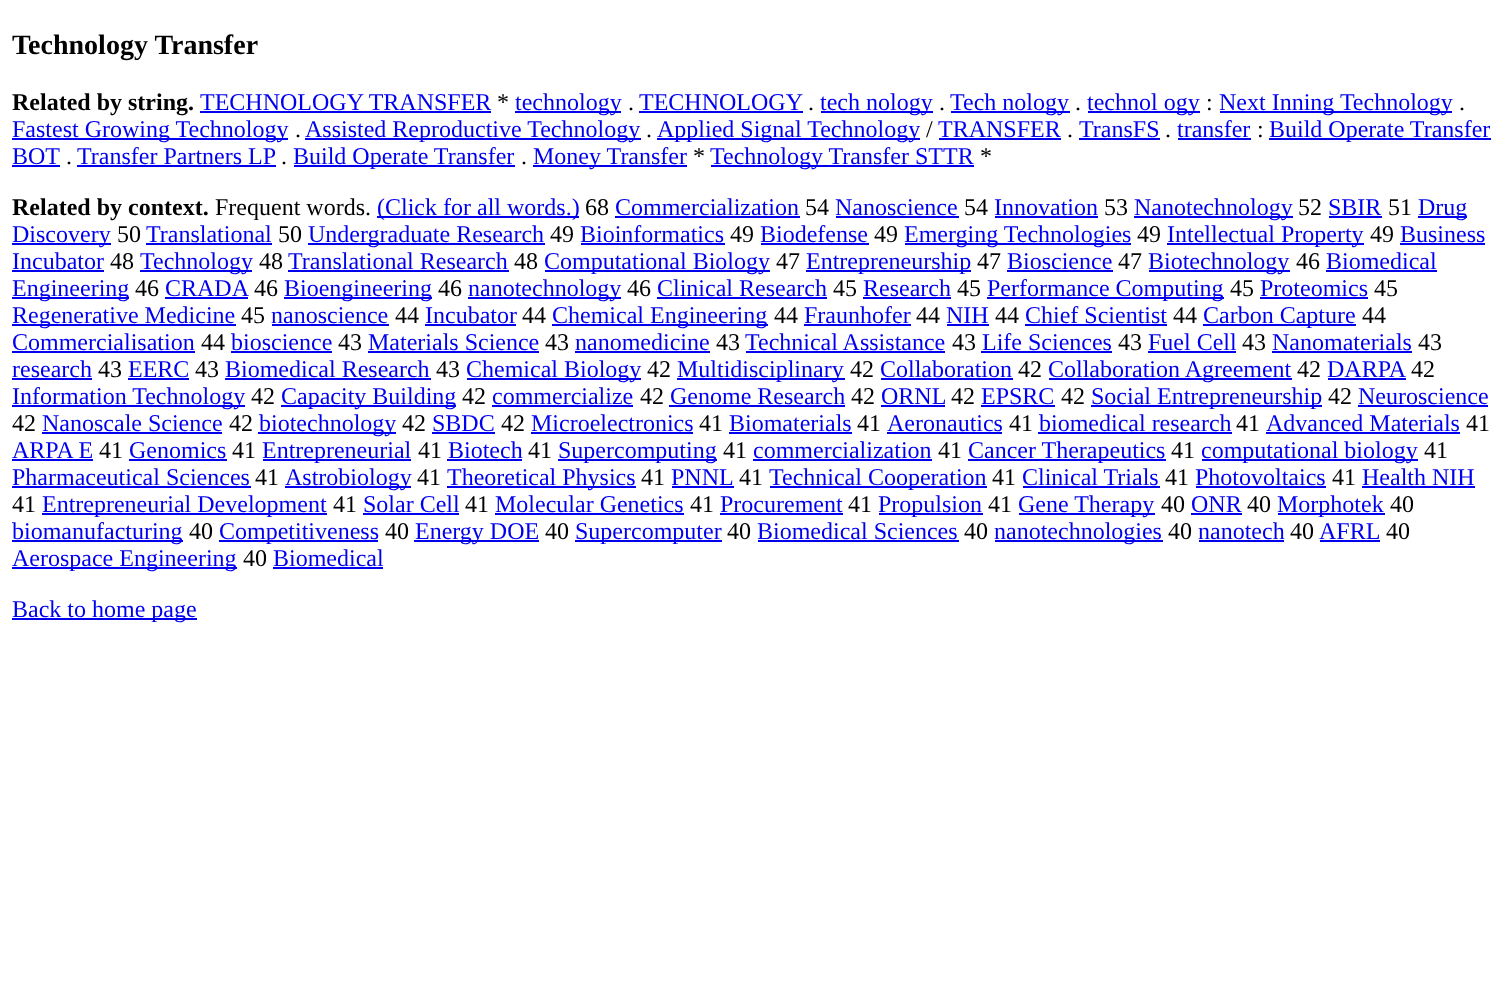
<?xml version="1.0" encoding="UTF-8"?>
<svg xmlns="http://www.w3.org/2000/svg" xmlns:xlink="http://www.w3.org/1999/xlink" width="1508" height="1005">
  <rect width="100%" height="100%" fill="#ffffff" />
  <rect x="200" y="111" width="291" height="2" fill="#0000ee" />
  <rect x="515" y="111" width="106" height="2" fill="#0000ee" />
  <rect x="639" y="111" width="164" height="2" fill="#0000ee" />
  <rect x="821" y="111" width="112" height="2" fill="#0000ee" />
  <rect x="951" y="111" width="119" height="2" fill="#0000ee" />
  <rect x="1088" y="111" width="112" height="2" fill="#0000ee" />
  <rect x="1220" y="111" width="232" height="2" fill="#0000ee" />
  <rect x="12" y="138" width="276" height="2" fill="#0000ee" />
  <rect x="305" y="138" width="336" height="2" fill="#0000ee" />
  <rect x="657" y="138" width="263" height="2" fill="#0000ee" />
  <rect x="939" y="138" width="122" height="2" fill="#0000ee" />
  <rect x="1079" y="138" width="81" height="2" fill="#0000ee" />
  <rect x="1178" y="138" width="73" height="2" fill="#0000ee" />
  <rect x="1269" y="138" width="222" height="2" fill="#0000ee" />
  <rect x="12" y="165" width="48" height="2" fill="#0000ee" />
  <rect x="77" y="165" width="199" height="2" fill="#0000ee" />
  <rect x="294" y="165" width="221" height="2" fill="#0000ee" />
  <rect x="533" y="165" width="154" height="2" fill="#0000ee" />
  <rect x="711" y="165" width="263" height="2" fill="#0000ee" />
  <rect x="377" y="216" width="202" height="2" fill="#0000ee" />
  <rect x="615" y="216" width="185" height="2" fill="#0000ee" />
  <rect x="836" y="216" width="123" height="2" fill="#0000ee" />
  <rect x="995" y="216" width="103" height="2" fill="#0000ee" />
  <rect x="1134" y="216" width="159" height="2" fill="#0000ee" />
  <rect x="1329" y="216" width="53" height="2" fill="#0000ee" />
  <rect x="1418" y="216" width="49" height="2" fill="#0000ee" />
  <rect x="12" y="243" width="99" height="2" fill="#0000ee" />
  <rect x="146" y="243" width="126" height="2" fill="#0000ee" />
  <rect x="308" y="243" width="237" height="2" fill="#0000ee" />
  <rect x="581" y="243" width="144" height="2" fill="#0000ee" />
  <rect x="761" y="243" width="108" height="2" fill="#0000ee" />
  <rect x="905" y="243" width="226" height="2" fill="#0000ee" />
  <rect x="1167" y="243" width="197" height="2" fill="#0000ee" />
  <rect x="1400" y="243" width="85" height="2" fill="#0000ee" />
  <rect x="12" y="270" width="92" height="2" fill="#0000ee" />
  <rect x="140" y="270" width="112" height="2" fill="#0000ee" />
  <rect x="288" y="270" width="221" height="2" fill="#0000ee" />
  <rect x="545" y="270" width="225" height="2" fill="#0000ee" />
  <rect x="806" y="270" width="165" height="2" fill="#0000ee" />
  <rect x="1007" y="270" width="106" height="2" fill="#0000ee" />
  <rect x="1149" y="270" width="141" height="2" fill="#0000ee" />
  <rect x="1326" y="270" width="111" height="2" fill="#0000ee" />
  <rect x="12" y="297" width="117" height="2" fill="#0000ee" />
  <rect x="165" y="297" width="83" height="2" fill="#0000ee" />
  <rect x="284" y="297" width="148" height="2" fill="#0000ee" />
  <rect x="468" y="297" width="153" height="2" fill="#0000ee" />
  <rect x="657" y="297" width="170" height="2" fill="#0000ee" />
  <rect x="863" y="297" width="88" height="2" fill="#0000ee" />
  <rect x="987" y="297" width="237" height="2" fill="#0000ee" />
  <rect x="1260" y="297" width="108" height="2" fill="#0000ee" />
  <rect x="12" y="324" width="224" height="2" fill="#0000ee" />
  <rect x="272" y="324" width="117" height="2" fill="#0000ee" />
  <rect x="425" y="324" width="91" height="2" fill="#0000ee" />
  <rect x="552" y="324" width="216" height="2" fill="#0000ee" />
  <rect x="804" y="324" width="107" height="2" fill="#0000ee" />
  <rect x="947" y="324" width="42" height="2" fill="#0000ee" />
  <rect x="1025" y="324" width="142" height="2" fill="#0000ee" />
  <rect x="1203" y="324" width="153" height="2" fill="#0000ee" />
  <rect x="12" y="351" width="183" height="2" fill="#0000ee" />
  <rect x="231" y="351" width="101" height="2" fill="#0000ee" />
  <rect x="368" y="351" width="171" height="2" fill="#0000ee" />
  <rect x="575" y="351" width="135" height="2" fill="#0000ee" />
  <rect x="746" y="351" width="199" height="2" fill="#0000ee" />
  <rect x="981" y="351" width="131" height="2" fill="#0000ee" />
  <rect x="1148" y="351" width="88" height="2" fill="#0000ee" />
  <rect x="1272" y="351" width="140" height="2" fill="#0000ee" />
  <rect x="12" y="378" width="80" height="2" fill="#0000ee" />
  <rect x="128" y="378" width="61" height="2" fill="#0000ee" />
  <rect x="225" y="378" width="206" height="2" fill="#0000ee" />
  <rect x="467" y="378" width="174" height="2" fill="#0000ee" />
  <rect x="677" y="378" width="168" height="2" fill="#0000ee" />
  <rect x="881" y="378" width="132" height="2" fill="#0000ee" />
  <rect x="1049" y="378" width="243" height="2" fill="#0000ee" />
  <rect x="1328" y="378" width="78" height="2" fill="#0000ee" />
  <rect x="12" y="405" width="233" height="2" fill="#0000ee" />
  <rect x="281" y="405" width="175" height="2" fill="#0000ee" />
  <rect x="492" y="405" width="141" height="2" fill="#0000ee" />
  <rect x="669" y="405" width="176" height="2" fill="#0000ee" />
  <rect x="881" y="405" width="64" height="2" fill="#0000ee" />
  <rect x="981" y="405" width="74" height="2" fill="#0000ee" />
  <rect x="1091" y="405" width="231" height="2" fill="#0000ee" />
  <rect x="1358" y="405" width="130" height="2" fill="#0000ee" />
  <rect x="42" y="432" width="180" height="2" fill="#0000ee" />
  <rect x="258" y="432" width="138" height="2" fill="#0000ee" />
  <rect x="432" y="432" width="63" height="2" fill="#0000ee" />
  <rect x="531" y="432" width="162" height="2" fill="#0000ee" />
  <rect x="729" y="432" width="123" height="2" fill="#0000ee" />
  <rect x="887" y="432" width="115" height="2" fill="#0000ee" />
  <rect x="1038" y="432" width="194" height="2" fill="#0000ee" />
  <rect x="1266" y="432" width="194" height="2" fill="#0000ee" />
  <rect x="12" y="459" width="81" height="2" fill="#0000ee" />
  <rect x="129" y="459" width="98" height="2" fill="#0000ee" />
  <rect x="263" y="459" width="148" height="2" fill="#0000ee" />
  <rect x="447" y="459" width="75" height="2" fill="#0000ee" />
  <rect x="558" y="459" width="159" height="2" fill="#0000ee" />
  <rect x="753" y="459" width="179" height="2" fill="#0000ee" />
  <rect x="968" y="459" width="198" height="2" fill="#0000ee" />
  <rect x="1202" y="459" width="216" height="2" fill="#0000ee" />
  <rect x="12" y="486" width="239" height="2" fill="#0000ee" />
  <rect x="285" y="486" width="126" height="2" fill="#0000ee" />
  <rect x="447" y="486" width="189" height="2" fill="#0000ee" />
  <rect x="672" y="486" width="62" height="2" fill="#0000ee" />
  <rect x="770" y="486" width="217" height="2" fill="#0000ee" />
  <rect x="1023" y="486" width="137" height="2" fill="#0000ee" />
  <rect x="1196" y="486" width="130" height="2" fill="#0000ee" />
  <rect x="1362" y="486" width="113" height="2" fill="#0000ee" />
  <rect x="42" y="513" width="285" height="2" fill="#0000ee" />
  <rect x="363" y="513" width="96" height="2" fill="#0000ee" />
  <rect x="495" y="513" width="189" height="2" fill="#0000ee" />
  <rect x="720" y="513" width="123" height="2" fill="#0000ee" />
  <rect x="879" y="513" width="104" height="2" fill="#0000ee" />
  <rect x="1019" y="513" width="136" height="2" fill="#0000ee" />
  <rect x="1191" y="513" width="51" height="2" fill="#0000ee" />
  <rect x="1278" y="513" width="107" height="2" fill="#0000ee" />
  <rect x="12" y="540" width="171" height="2" fill="#0000ee" />
  <rect x="219" y="540" width="159" height="2" fill="#0000ee" />
  <rect x="414" y="540" width="125" height="2" fill="#0000ee" />
  <rect x="575" y="540" width="147" height="2" fill="#0000ee" />
  <rect x="758" y="540" width="201" height="2" fill="#0000ee" />
  <rect x="995" y="540" width="168" height="2" fill="#0000ee" />
  <rect x="1199" y="540" width="85" height="2" fill="#0000ee" />
  <rect x="1320" y="540" width="60" height="2" fill="#0000ee" />
  <rect x="12" y="567" width="225" height="2" fill="#0000ee" />
  <rect x="273" y="567" width="110" height="2" fill="#0000ee" />
  <rect x="12" y="618" width="185" height="2" fill="#0000ee" />
  <text x="12" y="54" style="font-family: Liberation Serif; font-size: 28px; font-weight: bold; fill: #000000">Technology Transfer</text>
  <text x="12" y="110" style="font-family: Liberation Serif; font-size: 24px; font-weight: bold; fill: #000000">Related by string.</text>
  <text x="200" y="110" style="font-family: Liberation Serif; font-size: 24px; fill: #0000ee">TECHNOLOGY TRANSFER</text>
  <text x="497" y="110" style="font-family: Liberation Serif; font-size: 24px; fill: #000000">*</text>
  <text x="515" y="110" style="font-family: Liberation Serif; font-size: 24px; fill: #0000ee">technology</text>
  <text x="628" y="110" style="font-family: Liberation Serif; font-size: 24px; fill: #000000">.</text>
  <text x="639" y="110" style="font-family: Liberation Serif; font-size: 24px; fill: #0000ee">TECHNOLOGY</text>
  <text x="808" y="110" style="font-family: Liberation Serif; font-size: 24px; fill: #000000">.</text>
  <text x="820" y="110" style="font-family: Liberation Serif; font-size: 24px; fill: #0000ee">tech nology</text>
  <text x="939" y="110" style="font-family: Liberation Serif; font-size: 24px; fill: #000000">.</text>
  <text x="950" y="110" style="font-family: Liberation Serif; font-size: 24px; fill: #0000ee">Tech nology</text>
  <text x="1075" y="110" style="font-family: Liberation Serif; font-size: 24px; fill: #000000">.</text>
  <text x="1087" y="110" style="font-family: Liberation Serif; font-size: 24px; fill: #0000ee">technol ogy</text>
  <text x="1206" y="110" style="font-family: Liberation Serif; font-size: 24px; fill: #000000">:</text>
  <text x="1219" y="110" style="font-family: Liberation Serif; font-size: 24px; fill: #0000ee">Next Inning Technology</text>
  <text x="1459" y="110" style="font-family: Liberation Serif; font-size: 24px; fill: #000000">.</text>
  <text x="12" y="137" style="font-family: Liberation Serif; font-size: 24px; fill: #0000ee">Fastest Growing Technology</text>
  <text x="295" y="137" style="font-family: Liberation Serif; font-size: 24px; fill: #000000">.</text>
  <text x="305" y="137" style="font-family: Liberation Serif; font-size: 24px; fill: #0000ee">Assisted Reproductive Technology</text>
  <text x="646" y="137" style="font-family: Liberation Serif; font-size: 24px; fill: #000000">.</text>
  <text x="657" y="137" style="font-family: Liberation Serif; font-size: 24px; fill: #0000ee">Applied Signal Technology</text>
  <text x="926" y="137" style="font-family: Liberation Serif; font-size: 24px; fill: #000000">/</text>
  <text x="938" y="137" style="font-family: Liberation Serif; font-size: 24px; fill: #0000ee">TRANSFER</text>
  <text x="1067" y="137" style="font-family: Liberation Serif; font-size: 24px; fill: #000000">.</text>
  <text x="1079" y="137" style="font-family: Liberation Serif; font-size: 24px; fill: #0000ee">TransFS</text>
  <text x="1165" y="137" style="font-family: Liberation Serif; font-size: 24px; fill: #000000">.</text>
  <text x="1177" y="137" style="font-family: Liberation Serif; font-size: 24px; fill: #0000ee">transfer</text>
  <text x="1257" y="137" style="font-family: Liberation Serif; font-size: 24px; fill: #000000">:</text>
  <text x="1269" y="137" style="font-family: Liberation Serif; font-size: 24px; fill: #0000ee">Build Operate Transfer</text>
  <text x="12" y="164" style="font-family: Liberation Serif; font-size: 24px; fill: #0000ee">BOT</text>
  <text x="77" y="164" style="font-family: Liberation Serif; font-size: 24px; fill: #0000ee">Transfer Partners LP</text>
  <text x="293" y="164" style="font-family: Liberation Serif; font-size: 24px; fill: #0000ee">Build Operate Transfer</text>
  <text x="533" y="164" style="font-family: Liberation Serif; font-size: 24px; fill: #0000ee">Money Transfer</text>
  <text x="693" y="164" style="font-family: Liberation Serif; font-size: 24px; fill: #000000">*</text>
  <text x="710" y="164" style="font-family: Liberation Serif; font-size: 24px; fill: #0000ee">Technology Transfer STTR</text>
  <text x="980" y="164" style="font-family: Liberation Serif; font-size: 24px; fill: #000000">*</text>
  <text x="66" y="164" style="font-family: Liberation Serif; font-size: 24px; fill: #000000">.</text>
  <text x="281" y="164" style="font-family: Liberation Serif; font-size: 24px; fill: #000000">.</text>
  <text x="521" y="164" style="font-family: Liberation Serif; font-size: 24px; fill: #000000">.</text>
  <text x="12" y="215" style="font-family: Liberation Serif; font-size: 24px; font-weight: bold; fill: #000000">Related by context.</text>
  <text x="215" y="215" style="font-family: Liberation Serif; font-size: 24px; fill: #000000">Frequent words.</text>
  <text x="377" y="215" style="font-family: Liberation Serif; font-size: 24px; fill: #0000ee">(Click for all words.)</text>
  <text x="585" y="215" style="font-family: Liberation Serif; font-size: 24px; fill: #000000">68</text>
  <text x="615" y="215" style="font-family: Liberation Serif; font-size: 24px; fill: #0000ee">Commercialization</text>
  <text x="805" y="215" style="font-family: Liberation Serif; font-size: 24px; fill: #000000">54</text>
  <text x="835" y="215" style="font-family: Liberation Serif; font-size: 24px; fill: #0000ee">Nanoscience</text>
  <text x="964" y="215" style="font-family: Liberation Serif; font-size: 24px; fill: #000000">54</text>
  <text x="994" y="215" style="font-family: Liberation Serif; font-size: 24px; fill: #0000ee">Innovation</text>
  <text x="1104" y="215" style="font-family: Liberation Serif; font-size: 24px; fill: #000000">53</text>
  <text x="1134" y="215" style="font-family: Liberation Serif; font-size: 24px; fill: #0000ee">Nanotechnology</text>
  <text x="1298" y="215" style="font-family: Liberation Serif; font-size: 24px; fill: #000000">52</text>
  <text x="1328" y="215" style="font-family: Liberation Serif; font-size: 24px; fill: #0000ee">SBIR</text>
  <text x="1388" y="215" style="font-family: Liberation Serif; font-size: 24px; fill: #000000">51</text>
  <text x="1418" y="215" style="font-family: Liberation Serif; font-size: 24px; fill: #0000ee">Drug</text>
  <text x="12" y="242" style="font-family: Liberation Serif; font-size: 24px; fill: #0000ee">Discovery</text>
  <text x="117" y="242" style="font-family: Liberation Serif; font-size: 24px; fill: #000000">50</text>
  <text x="146" y="242" style="font-family: Liberation Serif; font-size: 24px; fill: #0000ee">Translational</text>
  <text x="278" y="242" style="font-family: Liberation Serif; font-size: 24px; fill: #000000">50</text>
  <text x="308" y="242" style="font-family: Liberation Serif; font-size: 24px; fill: #0000ee">Undergraduate Research</text>
  <text x="550" y="242" style="font-family: Liberation Serif; font-size: 24px; fill: #000000">49</text>
  <text x="580" y="242" style="font-family: Liberation Serif; font-size: 24px; fill: #0000ee">Bioinformatics</text>
  <text x="730" y="242" style="font-family: Liberation Serif; font-size: 24px; fill: #000000">49</text>
  <text x="760" y="242" style="font-family: Liberation Serif; font-size: 24px; fill: #0000ee">Biodefense</text>
  <text x="874" y="242" style="font-family: Liberation Serif; font-size: 24px; fill: #000000">49</text>
  <text x="904" y="242" style="font-family: Liberation Serif; font-size: 24px; fill: #0000ee">Emerging Technologies</text>
  <text x="1137" y="242" style="font-family: Liberation Serif; font-size: 24px; fill: #000000">49</text>
  <text x="1167" y="242" style="font-family: Liberation Serif; font-size: 24px; fill: #0000ee">Intellectual Property</text>
  <text x="1370" y="242" style="font-family: Liberation Serif; font-size: 24px; fill: #000000">49</text>
  <text x="1400" y="242" style="font-family: Liberation Serif; font-size: 24px; fill: #0000ee">Business</text>
  <text x="12" y="269" style="font-family: Liberation Serif; font-size: 24px; fill: #0000ee">Incubator</text>
  <text x="110" y="269" style="font-family: Liberation Serif; font-size: 24px; fill: #000000">48</text>
  <text x="140" y="269" style="font-family: Liberation Serif; font-size: 24px; fill: #0000ee">Technology</text>
  <text x="259" y="269" style="font-family: Liberation Serif; font-size: 24px; fill: #000000">48</text>
  <text x="288" y="269" style="font-family: Liberation Serif; font-size: 24px; fill: #0000ee">Translational Research</text>
  <text x="514" y="269" style="font-family: Liberation Serif; font-size: 24px; fill: #000000">48</text>
  <text x="544" y="269" style="font-family: Liberation Serif; font-size: 24px; fill: #0000ee">Computational Biology</text>
  <text x="776" y="269" style="font-family: Liberation Serif; font-size: 24px; fill: #000000">47</text>
  <text x="806" y="269" style="font-family: Liberation Serif; font-size: 24px; fill: #0000ee">Entrepreneurship</text>
  <text x="977" y="269" style="font-family: Liberation Serif; font-size: 24px; fill: #000000">47</text>
  <text x="1007" y="269" style="font-family: Liberation Serif; font-size: 24px; fill: #0000ee">Bioscience</text>
  <text x="1118" y="269" style="font-family: Liberation Serif; font-size: 24px; fill: #000000">47</text>
  <text x="1148" y="269" style="font-family: Liberation Serif; font-size: 24px; fill: #0000ee">Biotechnology</text>
  <text x="1296" y="269" style="font-family: Liberation Serif; font-size: 24px; fill: #000000">46</text>
  <text x="1326" y="269" style="font-family: Liberation Serif; font-size: 24px; fill: #0000ee">Biomedical</text>
  <text x="12" y="296" style="font-family: Liberation Serif; font-size: 24px; fill: #0000ee">Engineering</text>
  <text x="135" y="296" style="font-family: Liberation Serif; font-size: 24px; fill: #000000">46</text>
  <text x="165" y="296" style="font-family: Liberation Serif; font-size: 24px; fill: #0000ee">CRADA</text>
  <text x="254" y="296" style="font-family: Liberation Serif; font-size: 24px; fill: #000000">46</text>
  <text x="284" y="296" style="font-family: Liberation Serif; font-size: 24px; fill: #0000ee">Bioengineering</text>
  <text x="438" y="296" style="font-family: Liberation Serif; font-size: 24px; fill: #000000">46</text>
  <text x="468" y="296" style="font-family: Liberation Serif; font-size: 24px; fill: #0000ee">nanotechnology</text>
  <text x="627" y="296" style="font-family: Liberation Serif; font-size: 24px; fill: #000000">46</text>
  <text x="657" y="296" style="font-family: Liberation Serif; font-size: 24px; fill: #0000ee">Clinical Research</text>
  <text x="833" y="296" style="font-family: Liberation Serif; font-size: 24px; fill: #000000">45</text>
  <text x="863" y="296" style="font-family: Liberation Serif; font-size: 24px; fill: #0000ee">Research</text>
  <text x="957" y="296" style="font-family: Liberation Serif; font-size: 24px; fill: #000000">45</text>
  <text x="987" y="296" style="font-family: Liberation Serif; font-size: 24px; fill: #0000ee">Performance Computing</text>
  <text x="1230" y="296" style="font-family: Liberation Serif; font-size: 24px; fill: #000000">45</text>
  <text x="1260" y="296" style="font-family: Liberation Serif; font-size: 24px; fill: #0000ee">Proteomics</text>
  <text x="1374" y="296" style="font-family: Liberation Serif; font-size: 24px; fill: #000000">45</text>
  <text x="12" y="323" style="font-family: Liberation Serif; font-size: 24px; fill: #0000ee">Regenerative Medicine</text>
  <text x="241" y="323" style="font-family: Liberation Serif; font-size: 24px; fill: #000000">45</text>
  <text x="271" y="323" style="font-family: Liberation Serif; font-size: 24px; fill: #0000ee">nanoscience</text>
  <text x="395" y="323" style="font-family: Liberation Serif; font-size: 24px; fill: #000000">44</text>
  <text x="425" y="323" style="font-family: Liberation Serif; font-size: 24px; fill: #0000ee">Incubator</text>
  <text x="522" y="323" style="font-family: Liberation Serif; font-size: 24px; fill: #000000">44</text>
  <text x="552" y="323" style="font-family: Liberation Serif; font-size: 24px; fill: #0000ee">Chemical Engineering</text>
  <text x="774" y="323" style="font-family: Liberation Serif; font-size: 24px; fill: #000000">44</text>
  <text x="804" y="323" style="font-family: Liberation Serif; font-size: 24px; fill: #0000ee">Fraunhofer</text>
  <text x="916" y="323" style="font-family: Liberation Serif; font-size: 24px; fill: #000000">44</text>
  <text x="946" y="323" style="font-family: Liberation Serif; font-size: 24px; fill: #0000ee">NIH</text>
  <text x="995" y="323" style="font-family: Liberation Serif; font-size: 24px; fill: #000000">44</text>
  <text x="1025" y="323" style="font-family: Liberation Serif; font-size: 24px; fill: #0000ee">Chief Scientist</text>
  <text x="1173" y="323" style="font-family: Liberation Serif; font-size: 24px; fill: #000000">44</text>
  <text x="1203" y="323" style="font-family: Liberation Serif; font-size: 24px; fill: #0000ee">Carbon Capture</text>
  <text x="1362" y="323" style="font-family: Liberation Serif; font-size: 24px; fill: #000000">44</text>
  <text x="12" y="350" style="font-family: Liberation Serif; font-size: 24px; fill: #0000ee">Commercialisation</text>
  <text x="201" y="350" style="font-family: Liberation Serif; font-size: 24px; fill: #000000">44</text>
  <text x="231" y="350" style="font-family: Liberation Serif; font-size: 24px; fill: #0000ee">bioscience</text>
  <text x="338" y="350" style="font-family: Liberation Serif; font-size: 24px; fill: #000000">43</text>
  <text x="368" y="350" style="font-family: Liberation Serif; font-size: 24px; fill: #0000ee">Materials Science</text>
  <text x="545" y="350" style="font-family: Liberation Serif; font-size: 24px; fill: #000000">43</text>
  <text x="575" y="350" style="font-family: Liberation Serif; font-size: 24px; fill: #0000ee">nanomedicine</text>
  <text x="716" y="350" style="font-family: Liberation Serif; font-size: 24px; fill: #000000">43</text>
  <text x="745" y="350" style="font-family: Liberation Serif; font-size: 24px; fill: #0000ee">Technical Assistance</text>
  <text x="952" y="350" style="font-family: Liberation Serif; font-size: 24px; fill: #000000">43</text>
  <text x="982" y="350" style="font-family: Liberation Serif; font-size: 24px; fill: #0000ee">Life Sciences</text>
  <text x="1118" y="350" style="font-family: Liberation Serif; font-size: 24px; fill: #000000">43</text>
  <text x="1148" y="350" style="font-family: Liberation Serif; font-size: 24px; fill: #0000ee">Fuel Cell</text>
  <text x="1242" y="350" style="font-family: Liberation Serif; font-size: 24px; fill: #000000">43</text>
  <text x="1272" y="350" style="font-family: Liberation Serif; font-size: 24px; fill: #0000ee">Nanomaterials</text>
  <text x="1418" y="350" style="font-family: Liberation Serif; font-size: 24px; fill: #000000">43</text>
  <text x="12" y="377" style="font-family: Liberation Serif; font-size: 24px; fill: #0000ee">research</text>
  <text x="98" y="377" style="font-family: Liberation Serif; font-size: 24px; fill: #000000">43</text>
  <text x="128" y="377" style="font-family: Liberation Serif; font-size: 24px; fill: #0000ee">EERC</text>
  <text x="195" y="377" style="font-family: Liberation Serif; font-size: 24px; fill: #000000">43</text>
  <text x="225" y="377" style="font-family: Liberation Serif; font-size: 24px; fill: #0000ee">Biomedical Research</text>
  <text x="436" y="377" style="font-family: Liberation Serif; font-size: 24px; fill: #000000">43</text>
  <text x="466" y="377" style="font-family: Liberation Serif; font-size: 24px; fill: #0000ee">Chemical Biology</text>
  <text x="647" y="377" style="font-family: Liberation Serif; font-size: 24px; fill: #000000">42</text>
  <text x="677" y="377" style="font-family: Liberation Serif; font-size: 24px; fill: #0000ee">Multidisciplinary</text>
  <text x="850" y="377" style="font-family: Liberation Serif; font-size: 24px; fill: #000000">42</text>
  <text x="880" y="377" style="font-family: Liberation Serif; font-size: 24px; fill: #0000ee">Collaboration</text>
  <text x="1018" y="377" style="font-family: Liberation Serif; font-size: 24px; fill: #000000">42</text>
  <text x="1048" y="377" style="font-family: Liberation Serif; font-size: 24px; fill: #0000ee">Collaboration Agreement</text>
  <text x="1297" y="377" style="font-family: Liberation Serif; font-size: 24px; fill: #000000">42</text>
  <text x="1327" y="377" style="font-family: Liberation Serif; font-size: 24px; fill: #0000ee">DARPA</text>
  <text x="1411" y="377" style="font-family: Liberation Serif; font-size: 24px; fill: #000000">42</text>
  <text x="12" y="404" style="font-family: Liberation Serif; font-size: 24px; fill: #0000ee">Information Technology</text>
  <text x="251" y="404" style="font-family: Liberation Serif; font-size: 24px; fill: #000000">42</text>
  <text x="281" y="404" style="font-family: Liberation Serif; font-size: 24px; fill: #0000ee">Capacity Building</text>
  <text x="462" y="404" style="font-family: Liberation Serif; font-size: 24px; fill: #000000">42</text>
  <text x="492" y="404" style="font-family: Liberation Serif; font-size: 24px; fill: #0000ee">commercialize</text>
  <text x="640" y="404" style="font-family: Liberation Serif; font-size: 24px; fill: #000000">42</text>
  <text x="670" y="404" style="font-family: Liberation Serif; font-size: 24px; fill: #0000ee">Genome Research</text>
  <text x="851" y="404" style="font-family: Liberation Serif; font-size: 24px; fill: #000000">42</text>
  <text x="881" y="404" style="font-family: Liberation Serif; font-size: 24px; fill: #0000ee">ORNL</text>
  <text x="951" y="404" style="font-family: Liberation Serif; font-size: 24px; fill: #000000">42</text>
  <text x="981" y="404" style="font-family: Liberation Serif; font-size: 24px; fill: #0000ee">EPSRC</text>
  <text x="1061" y="404" style="font-family: Liberation Serif; font-size: 24px; fill: #000000">42</text>
  <text x="1091" y="404" style="font-family: Liberation Serif; font-size: 24px; fill: #0000ee">Social Entrepreneurship</text>
  <text x="1328" y="404" style="font-family: Liberation Serif; font-size: 24px; fill: #000000">42</text>
  <text x="1358" y="404" style="font-family: Liberation Serif; font-size: 24px; fill: #0000ee">Neuroscience</text>
  <text x="12" y="431" style="font-family: Liberation Serif; font-size: 24px; fill: #000000">42</text>
  <text x="42" y="431" style="font-family: Liberation Serif; font-size: 24px; fill: #0000ee">Nanoscale Science</text>
  <text x="229" y="431" style="font-family: Liberation Serif; font-size: 24px; fill: #000000">42</text>
  <text x="259" y="431" style="font-family: Liberation Serif; font-size: 24px; fill: #0000ee">biotechnology</text>
  <text x="402" y="431" style="font-family: Liberation Serif; font-size: 24px; fill: #000000">42</text>
  <text x="432" y="431" style="font-family: Liberation Serif; font-size: 24px; fill: #0000ee">SBDC</text>
  <text x="501" y="431" style="font-family: Liberation Serif; font-size: 24px; fill: #000000">42</text>
  <text x="531" y="431" style="font-family: Liberation Serif; font-size: 24px; fill: #0000ee">Microelectronics</text>
  <text x="699" y="431" style="font-family: Liberation Serif; font-size: 24px; fill: #000000">41</text>
  <text x="729" y="431" style="font-family: Liberation Serif; font-size: 24px; fill: #0000ee">Biomaterials</text>
  <text x="857" y="431" style="font-family: Liberation Serif; font-size: 24px; fill: #000000">41</text>
  <text x="887" y="431" style="font-family: Liberation Serif; font-size: 24px; fill: #0000ee">Aeronautics</text>
  <text x="1009" y="431" style="font-family: Liberation Serif; font-size: 24px; fill: #000000">41</text>
  <text x="1039" y="431" style="font-family: Liberation Serif; font-size: 24px; fill: #0000ee">biomedical research</text>
  <text x="1236" y="431" style="font-family: Liberation Serif; font-size: 24px; fill: #000000">41</text>
  <text x="1266" y="431" style="font-family: Liberation Serif; font-size: 24px; fill: #0000ee">Advanced Materials</text>
  <text x="1466" y="431" style="font-family: Liberation Serif; font-size: 24px; fill: #000000">41</text>
  <text x="12" y="458" style="font-family: Liberation Serif; font-size: 24px; fill: #0000ee">ARPA E</text>
  <text x="99" y="458" style="font-family: Liberation Serif; font-size: 24px; fill: #000000">41</text>
  <text x="129" y="458" style="font-family: Liberation Serif; font-size: 24px; fill: #0000ee">Genomics</text>
  <text x="232" y="458" style="font-family: Liberation Serif; font-size: 24px; fill: #000000">41</text>
  <text x="262" y="458" style="font-family: Liberation Serif; font-size: 24px; fill: #0000ee">Entrepreneurial</text>
  <text x="418" y="458" style="font-family: Liberation Serif; font-size: 24px; fill: #000000">41</text>
  <text x="448" y="458" style="font-family: Liberation Serif; font-size: 24px; fill: #0000ee">Biotech</text>
  <text x="528" y="458" style="font-family: Liberation Serif; font-size: 24px; fill: #000000">41</text>
  <text x="558" y="458" style="font-family: Liberation Serif; font-size: 24px; fill: #0000ee">Supercomputing</text>
  <text x="723" y="458" style="font-family: Liberation Serif; font-size: 24px; fill: #000000">41</text>
  <text x="753" y="458" style="font-family: Liberation Serif; font-size: 24px; fill: #0000ee">commercialization</text>
  <text x="938" y="458" style="font-family: Liberation Serif; font-size: 24px; fill: #000000">41</text>
  <text x="968" y="458" style="font-family: Liberation Serif; font-size: 24px; fill: #0000ee">Cancer Therapeutics</text>
  <text x="1171" y="458" style="font-family: Liberation Serif; font-size: 24px; fill: #000000">41</text>
  <text x="1201" y="458" style="font-family: Liberation Serif; font-size: 24px; fill: #0000ee">computational biology</text>
  <text x="1424" y="458" style="font-family: Liberation Serif; font-size: 24px; fill: #000000">41</text>
  <text x="12" y="485" style="font-family: Liberation Serif; font-size: 24px; fill: #0000ee">Pharmaceutical Sciences</text>
  <text x="255" y="485" style="font-family: Liberation Serif; font-size: 24px; fill: #000000">41</text>
  <text x="285" y="485" style="font-family: Liberation Serif; font-size: 24px; fill: #0000ee">Astrobiology</text>
  <text x="417" y="485" style="font-family: Liberation Serif; font-size: 24px; fill: #000000">41</text>
  <text x="447" y="485" style="font-family: Liberation Serif; font-size: 24px; fill: #0000ee">Theoretical Physics</text>
  <text x="641" y="485" style="font-family: Liberation Serif; font-size: 24px; fill: #000000">41</text>
  <text x="671" y="485" style="font-family: Liberation Serif; font-size: 24px; fill: #0000ee">PNNL</text>
  <text x="739" y="485" style="font-family: Liberation Serif; font-size: 24px; fill: #000000">41</text>
  <text x="769" y="485" style="font-family: Liberation Serif; font-size: 24px; fill: #0000ee">Technical Cooperation</text>
  <text x="992" y="485" style="font-family: Liberation Serif; font-size: 24px; fill: #000000">41</text>
  <text x="1022" y="485" style="font-family: Liberation Serif; font-size: 24px; fill: #0000ee">Clinical Trials</text>
  <text x="1165" y="485" style="font-family: Liberation Serif; font-size: 24px; fill: #000000">41</text>
  <text x="1195" y="485" style="font-family: Liberation Serif; font-size: 24px; fill: #0000ee">Photovoltaics</text>
  <text x="1332" y="485" style="font-family: Liberation Serif; font-size: 24px; fill: #000000">41</text>
  <text x="1362" y="485" style="font-family: Liberation Serif; font-size: 24px; fill: #0000ee">Health NIH</text>
  <text x="12" y="512" style="font-family: Liberation Serif; font-size: 24px; fill: #000000">41</text>
  <text x="42" y="512" style="font-family: Liberation Serif; font-size: 24px; fill: #0000ee">Entrepreneurial Development</text>
  <text x="333" y="512" style="font-family: Liberation Serif; font-size: 24px; fill: #000000">41</text>
  <text x="363" y="512" style="font-family: Liberation Serif; font-size: 24px; fill: #0000ee">Solar Cell</text>
  <text x="465" y="512" style="font-family: Liberation Serif; font-size: 24px; fill: #000000">41</text>
  <text x="495" y="512" style="font-family: Liberation Serif; font-size: 24px; fill: #0000ee">Molecular Genetics</text>
  <text x="690" y="512" style="font-family: Liberation Serif; font-size: 24px; fill: #000000">41</text>
  <text x="720" y="512" style="font-family: Liberation Serif; font-size: 24px; fill: #0000ee">Procurement</text>
  <text x="848" y="512" style="font-family: Liberation Serif; font-size: 24px; fill: #000000">41</text>
  <text x="878" y="512" style="font-family: Liberation Serif; font-size: 24px; fill: #0000ee">Propulsion</text>
  <text x="988" y="512" style="font-family: Liberation Serif; font-size: 24px; fill: #000000">41</text>
  <text x="1018" y="512" style="font-family: Liberation Serif; font-size: 24px; fill: #0000ee">Gene Therapy</text>
  <text x="1161" y="512" style="font-family: Liberation Serif; font-size: 24px; fill: #000000">40</text>
  <text x="1191" y="512" style="font-family: Liberation Serif; font-size: 24px; fill: #0000ee">ONR</text>
  <text x="1247" y="512" style="font-family: Liberation Serif; font-size: 24px; fill: #000000">40</text>
  <text x="1277" y="512" style="font-family: Liberation Serif; font-size: 24px; fill: #0000ee">Morphotek</text>
  <text x="1390" y="512" style="font-family: Liberation Serif; font-size: 24px; fill: #000000">40</text>
  <text x="12" y="539" style="font-family: Liberation Serif; font-size: 24px; fill: #0000ee">biomanufacturing</text>
  <text x="189" y="539" style="font-family: Liberation Serif; font-size: 24px; fill: #000000">40</text>
  <text x="219" y="539" style="font-family: Liberation Serif; font-size: 24px; fill: #0000ee">Competitiveness</text>
  <text x="385" y="539" style="font-family: Liberation Serif; font-size: 24px; fill: #000000">40</text>
  <text x="415" y="539" style="font-family: Liberation Serif; font-size: 24px; fill: #0000ee">Energy DOE</text>
  <text x="545" y="539" style="font-family: Liberation Serif; font-size: 24px; fill: #000000">40</text>
  <text x="575" y="539" style="font-family: Liberation Serif; font-size: 24px; fill: #0000ee">Supercomputer</text>
  <text x="727" y="539" style="font-family: Liberation Serif; font-size: 24px; fill: #000000">40</text>
  <text x="757" y="539" style="font-family: Liberation Serif; font-size: 24px; fill: #0000ee">Biomedical Sciences</text>
  <text x="964" y="539" style="font-family: Liberation Serif; font-size: 24px; fill: #000000">40</text>
  <text x="994" y="539" style="font-family: Liberation Serif; font-size: 24px; fill: #0000ee">nanotechnologies</text>
  <text x="1168" y="539" style="font-family: Liberation Serif; font-size: 24px; fill: #000000">40</text>
  <text x="1198" y="539" style="font-family: Liberation Serif; font-size: 24px; fill: #0000ee">nanotech</text>
  <text x="1290" y="539" style="font-family: Liberation Serif; font-size: 24px; fill: #000000">40</text>
  <text x="1319" y="539" style="font-family: Liberation Serif; font-size: 24px; fill: #0000ee">AFRL</text>
  <text x="1386" y="539" style="font-family: Liberation Serif; font-size: 24px; fill: #000000">40</text>
  <text x="12" y="566" style="font-family: Liberation Serif; font-size: 24px; fill: #0000ee">Aerospace Engineering</text>
  <text x="243" y="566" style="font-family: Liberation Serif; font-size: 24px; fill: #000000">40</text>
  <text x="273" y="566" style="font-family: Liberation Serif; font-size: 24px; fill: #0000ee">Biomedical</text>
  <text x="12" y="617" style="font-family: Liberation Serif; font-size: 24px; fill: #0000ee">Back to home page</text>
</svg>
